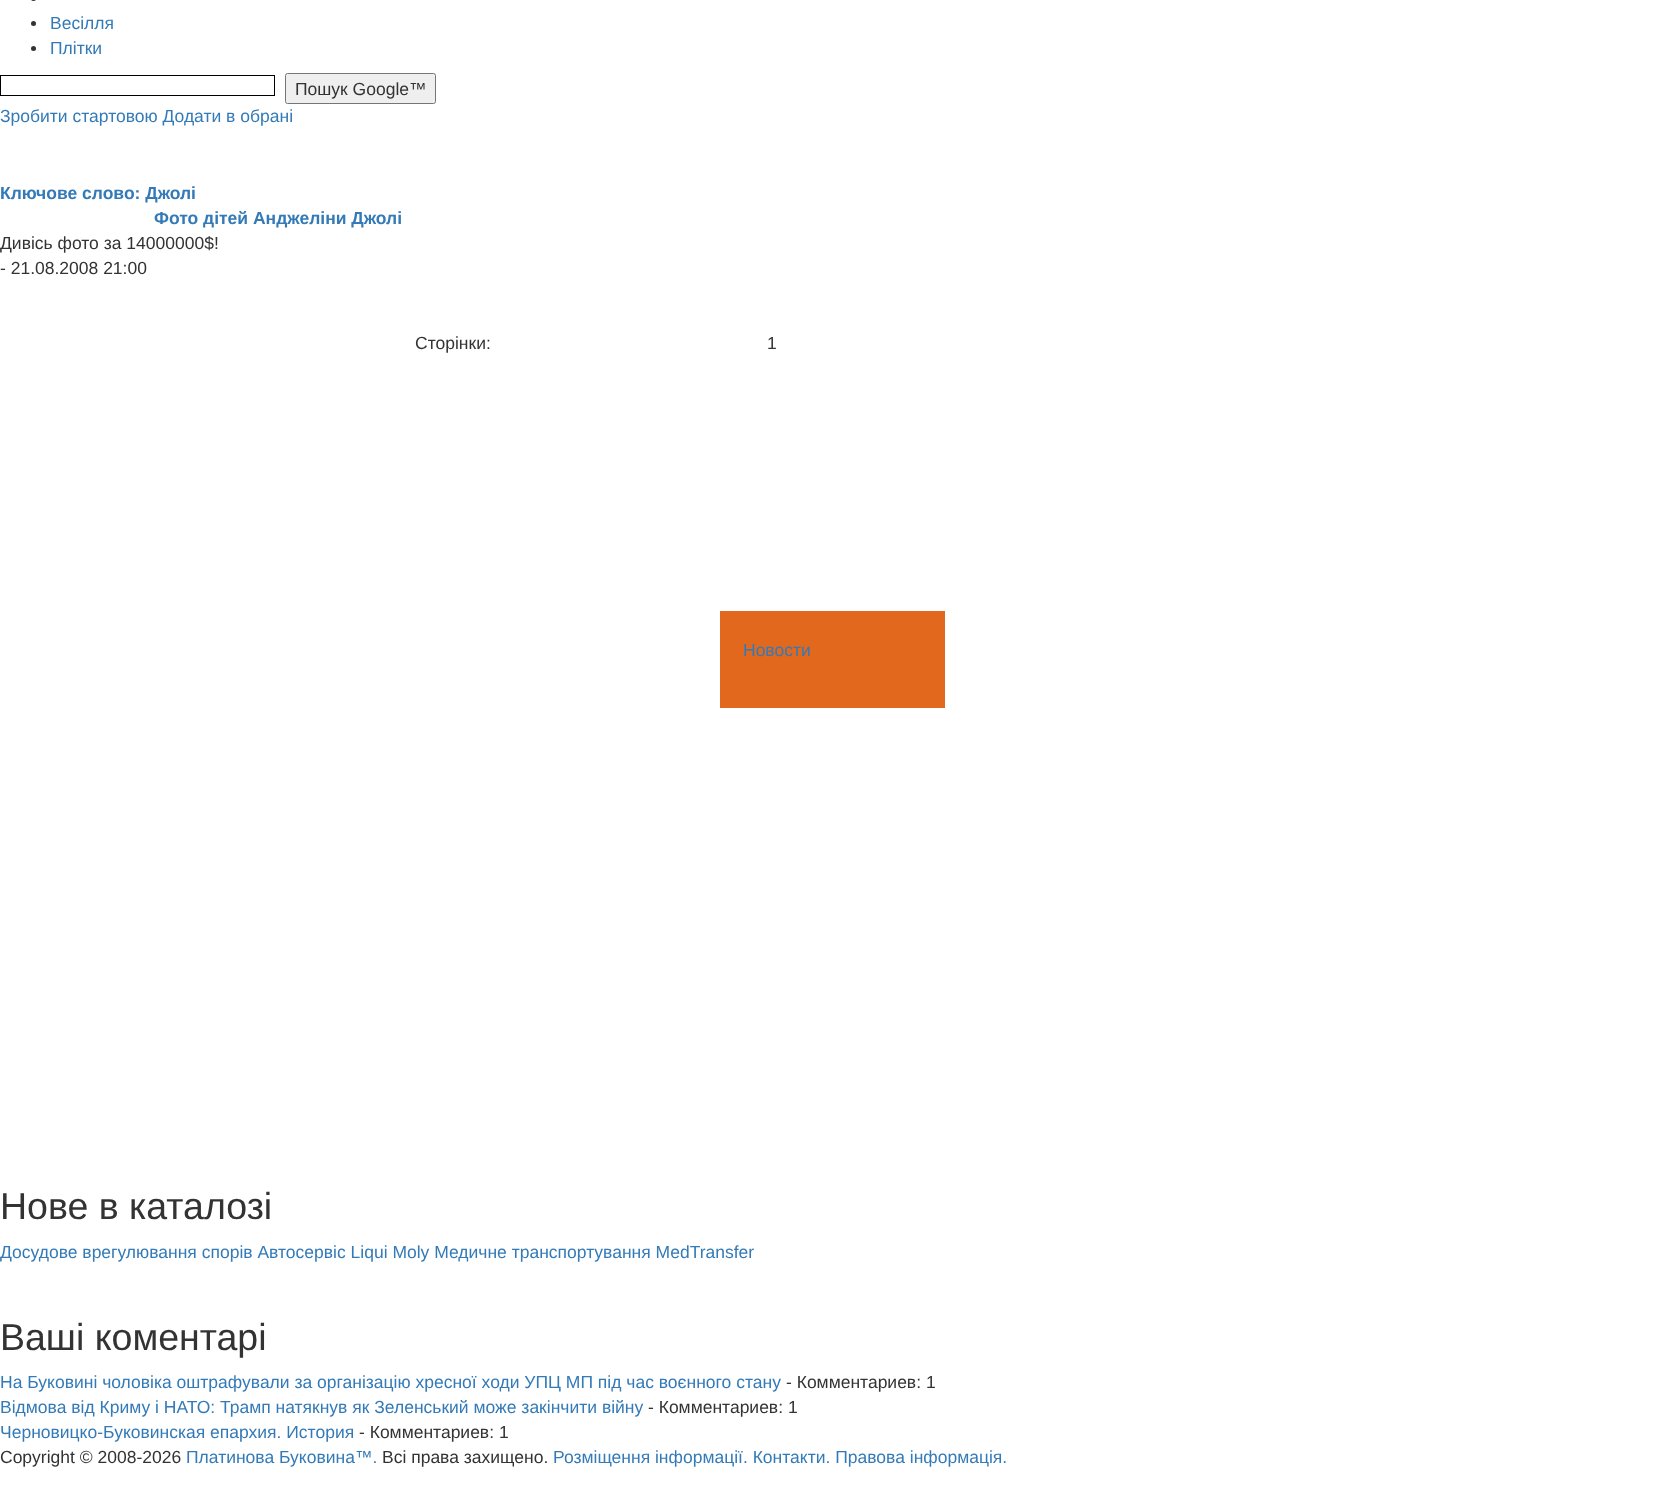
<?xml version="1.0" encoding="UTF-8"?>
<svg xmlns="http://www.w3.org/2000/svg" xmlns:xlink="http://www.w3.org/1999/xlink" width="1665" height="1488">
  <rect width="100%" height="100%" fill="#ffffff" />
  <rect x="31" y="-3" width="5" height="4" rx="2.5" fill="#333333" />
  <circle cx="33.5" cy="23.5" r="2.5" fill="#333333" />
  <circle cx="33.5" cy="48.5" r="2.5" fill="#333333" />
  <rect x="0.5" y="75.5" width="274" height="20" fill="none" stroke="#000000" />
  <rect x="285.5" y="73.5" width="150" height="30" rx="2" fill="#efefef" stroke="#767676" />
  <rect x="720" y="611" width="225" height="97" fill="#e2681e" />
  <text x="50" y="29" style="font-family: Liberation Sans; font-size: 17.5px; fill: #337ab7">Весілля</text>
  <text x="50" y="54" style="font-family: Liberation Sans; font-size: 17.5px; fill: #337ab7">Плітки</text>
  <text x="295" y="95" style="font-family: Liberation Sans; font-size: 17.5px; fill: #333333">Пошук Google™</text>
  <text x="0" y="122" style="font-family: Liberation Sans; font-size: 17.5px; fill: #337ab7">Зробити стартовою Додати в обрані</text>
  <text x="0" y="199" style="font-family: Liberation Sans; font-size: 17.5px; font-weight: bold; fill: #337ab7">Ключове слово: Джолі</text>
  <text x="154" y="224" style="font-family: Liberation Sans; font-size: 17.5px; font-weight: bold; fill: #337ab7">Фото дітей Анджеліни Джолі</text>
  <text x="0" y="249" style="font-family: Liberation Sans; font-size: 17.5px; fill: #333333">Дивісь фото за 14000000$!</text>
  <text x="0" y="274" style="font-family: Liberation Sans; font-size: 17.5px; fill: #333333">- 21.08.2008 21:00</text>
  <text x="415" y="349" style="font-family: Liberation Sans; font-size: 17.5px; fill: #333333">Сторінки:</text>
  <text x="767" y="349" style="font-family: Liberation Sans; font-size: 17.5px; fill: #333333">1</text>
  <text x="743" y="656" style="font-family: Liberation Sans; font-size: 17.5px; fill: #337ab7">Новости</text>
  <text x="0" y="1219" style="font-family: Liberation Sans; font-size: 37.5px; fill: #333333">Нове в каталозі</text>
  <text x="0" y="1258" style="font-family: Liberation Sans; font-size: 17.5px; fill: #337ab7">Досудове врегулювання спорів Автосервіс Liqui Moly Медичне транспортування MedTransfer</text>
  <text x="0" y="1350" style="font-family: Liberation Sans; font-size: 37.5px; fill: #333333">Ваші коментарі</text>
  <text x="0" y="1388" style="font-family: Liberation Sans; font-size: 17.5px; fill: #337ab7">На Буковині чоловіка оштрафували за організацію хресної ходи УПЦ МП під час воєнного стану</text>
  <text x="786" y="1388" style="font-family: Liberation Sans; font-size: 17.5px; fill: #333333">- Комментариев: 1</text>
  <text x="0" y="1413" style="font-family: Liberation Sans; font-size: 17.5px; fill: #337ab7">Відмова від Криму і НАТО: Трамп натякнув як Зеленський може закінчити війну</text>
  <text x="648" y="1413" style="font-family: Liberation Sans; font-size: 17.5px; fill: #333333">- Комментариев: 1</text>
  <text x="0" y="1438" style="font-family: Liberation Sans; font-size: 17.5px; fill: #337ab7">Черновицко-Буковинская епархия. История</text>
  <text x="359" y="1438" style="font-family: Liberation Sans; font-size: 17.5px; fill: #333333">- Комментариев: 1</text>
  <text x="0" y="1463" style="font-family: Liberation Sans; font-size: 17.5px; fill: #333333">Copyright © 2008-2026</text>
  <text x="186" y="1463" style="font-family: Liberation Sans; font-size: 17.5px; fill: #337ab7">Платинова Буковина™.</text>
  <text x="382" y="1463" style="font-family: Liberation Sans; font-size: 17.5px; fill: #333333">Всі права захищено.</text>
  <text x="553" y="1463" style="font-family: Liberation Sans; font-size: 17.5px; fill: #337ab7">Розміщення інформації. Контакти. Правова інформація.</text>
</svg>
